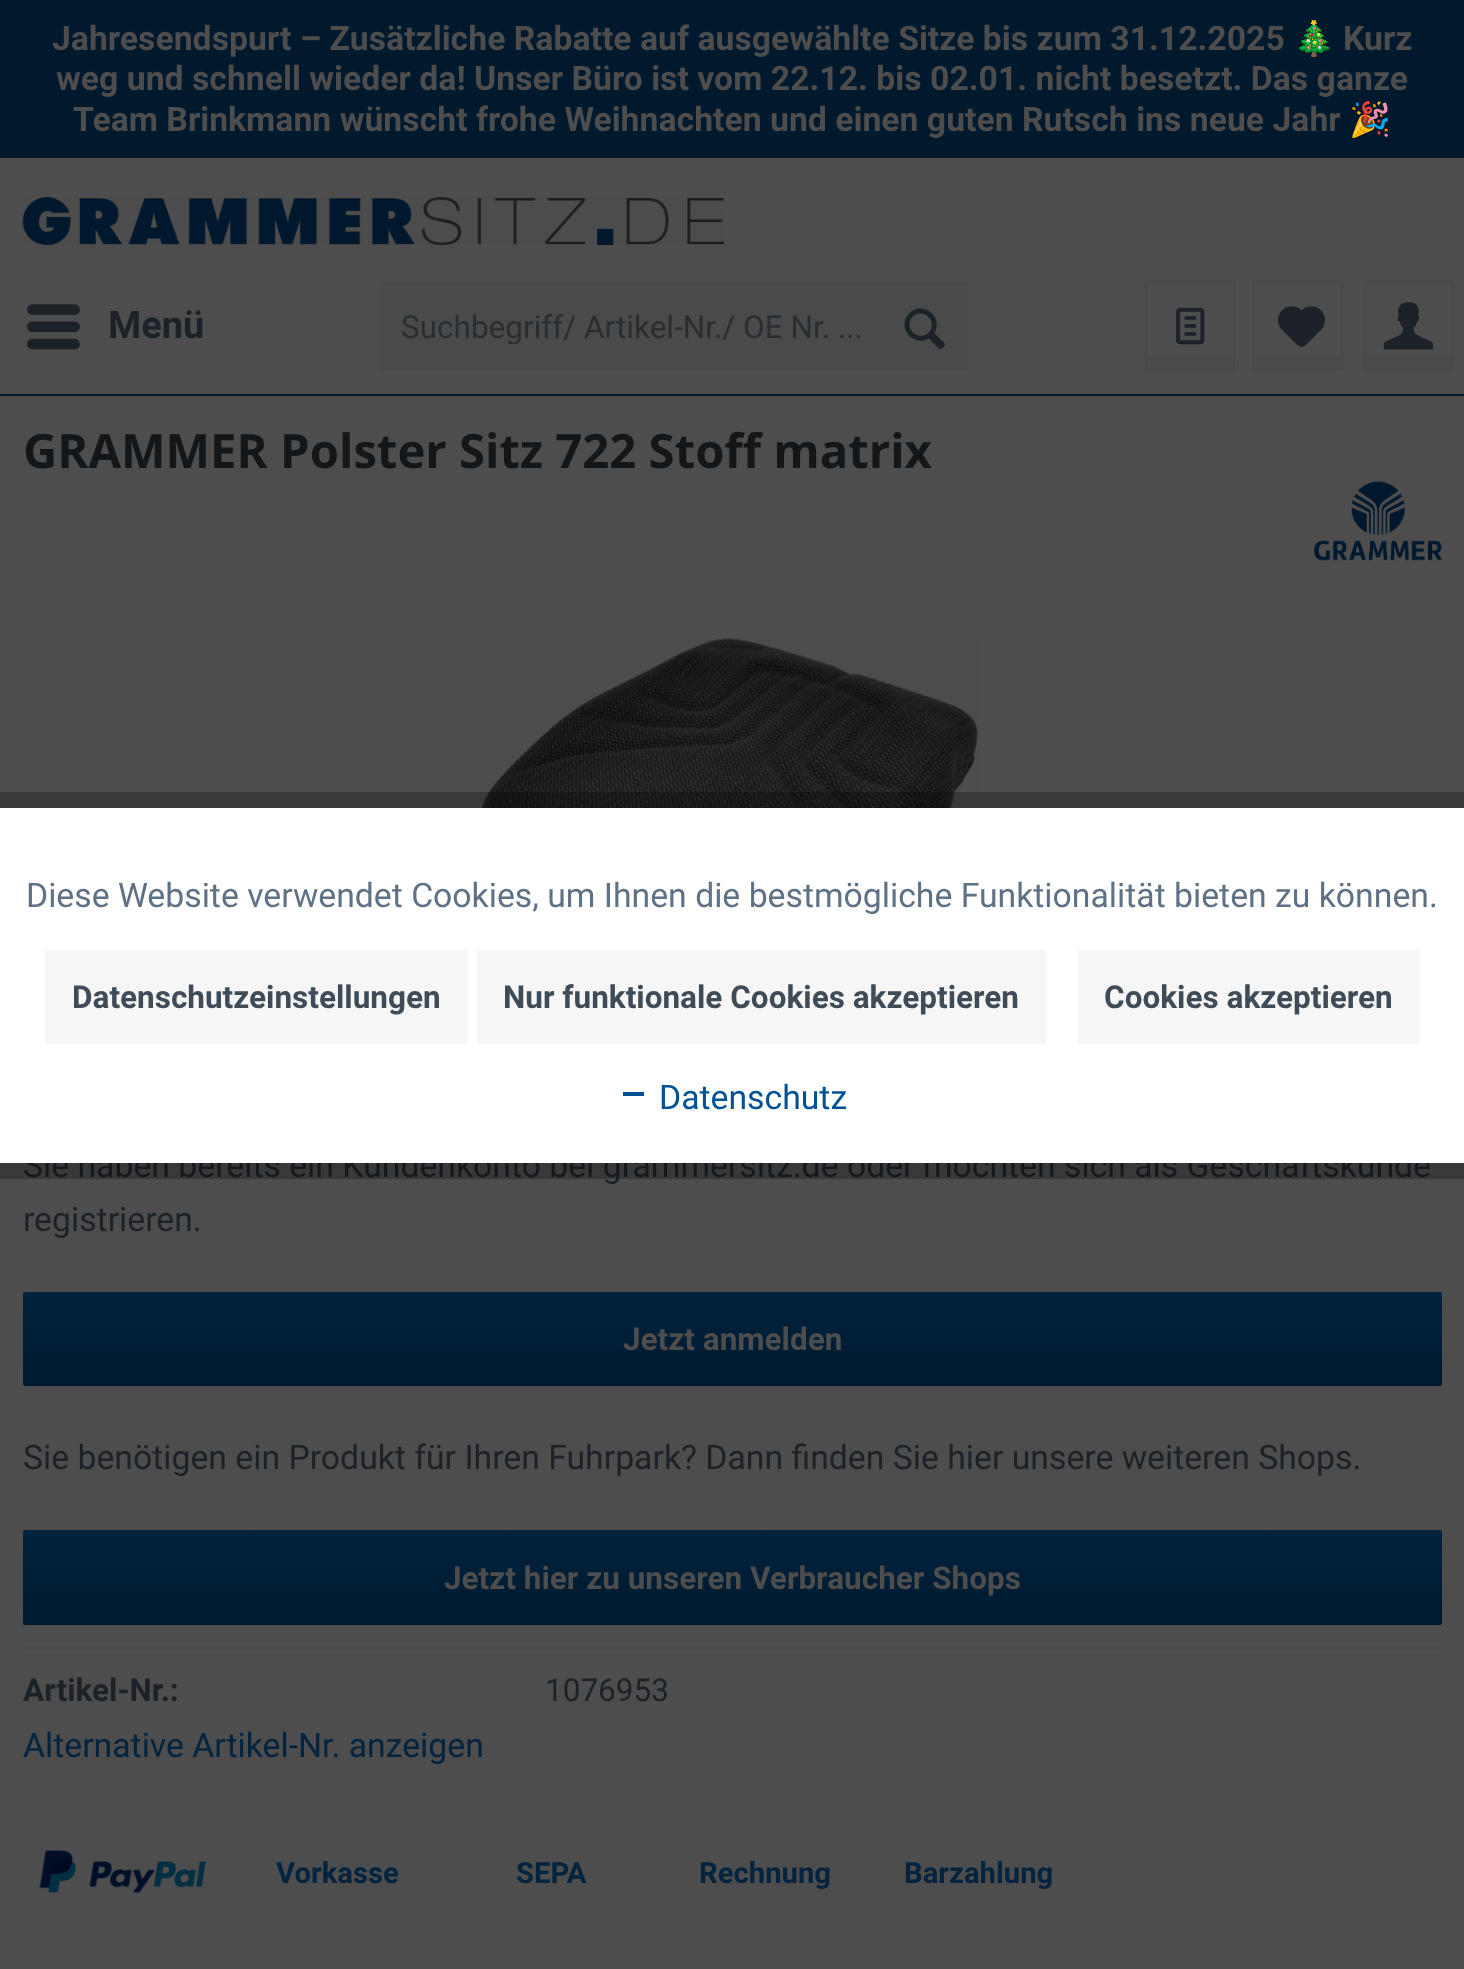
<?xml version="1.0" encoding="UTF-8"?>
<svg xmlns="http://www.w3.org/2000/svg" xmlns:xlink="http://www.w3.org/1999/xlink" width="1464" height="1969">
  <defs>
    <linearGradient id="g1" gradientUnits="userSpaceOnUse" x1="1190" y1="284" x2="1190" y2="369"><stop offset="0" stop-color="#4d4d4d" /><stop offset="1" stop-color="#4a4a4b" /></linearGradient>
    <linearGradient id="g2" gradientUnits="userSpaceOnUse" x1="1298" y1="284" x2="1298" y2="369"><stop offset="0" stop-color="#4d4d4d" /><stop offset="1" stop-color="#4a4a4b" /></linearGradient>
    <linearGradient id="g3" gradientUnits="userSpaceOnUse" x1="1409" y1="284" x2="1409" y2="369"><stop offset="0" stop-color="#4d4d4d" /><stop offset="1" stop-color="#4a4a4b" /></linearGradient>
    <linearGradient id="g4" gradientUnits="userSpaceOnUse" x1="732" y1="1292" x2="732" y2="1386"><stop offset="0" stop-color="#00233f" /><stop offset="1" stop-color="#00192d" /></linearGradient>
    <linearGradient id="g5" gradientUnits="userSpaceOnUse" x1="732" y1="1530" x2="732" y2="1625"><stop offset="0" stop-color="#00233f" /><stop offset="1" stop-color="#00192d" /></linearGradient>
    <clipPath id="clip1"><rect x="401" y="308" width="472" height="36" /></clipPath>
  </defs>
  <rect width="100%" height="100%" fill="#4d4d4d" />
  <rect y="394" width="1464" height="2" fill="#00192d" />
  <rect width="1464" height="158" fill="#00192d" />
  <image x="22" y="197" width="703" height="48" xlink:href="image1.png" />
  <image x="27" y="304" width="53" height="46" xlink:href="image2.png" />
  <rect x="380" y="281" width="588" height="90" rx="2" fill="#4a4a4b" />
  <image x="904" y="308" width="41" height="41" xlink:href="image3.png" />
  <rect x="1148" y="355" width="85" height="14" fill="url(#g1)" />
  <rect x="1146" y="282" width="88" height="88" rx="1" fill="none" stroke="#484848" stroke-width="2" />
  <image x="1176" y="307" width="29" height="38" xlink:href="image4.png" />
  <rect x="1256" y="355" width="85" height="14" fill="url(#g2)" />
  <rect x="1254" y="282" width="88" height="88" rx="1" fill="none" stroke="#484848" stroke-width="2" />
  <image x="1278" y="306" width="48" height="41" xlink:href="image5.png" />
  <rect x="1366" y="355" width="85" height="14" fill="url(#g3)" />
  <rect x="1365" y="282" width="88" height="88" rx="1" fill="none" stroke="#484848" stroke-width="2" />
  <image x="1383" y="302" width="51" height="48" xlink:href="image6.png" />
  <image x="1314" y="481" width="129" height="80" xlink:href="image7.png" />
  <image x="479" y="638" width="500" height="170" xlink:href="image8.png" />
  <rect x="23" y="1647" width="1419" height="2" fill="#484848" />
  <rect x="23" y="1292" width="1419" height="94" rx="2" fill="url(#g4)" />
  <rect x="23" y="1530" width="1419" height="95" rx="2" fill="url(#g5)" />
  <image x="39" y="1850" width="167" height="43" xlink:href="image9.png" />
  <text x="52" y="50" style="font-family: Roboto; font-size: 33.75px; font-weight: bold; fill: #4d4d4d">Jahresendspurt – Zusätzliche Rabatte auf ausgewählte Sitze bis zum 31.12.2025</text>
  <text x="1293" y="50" style="font-family: Noto Color Emoji; font-size: 33.75px; font-weight: bold; fill: #4d4d4d">🎄</text>
  <text x="1343" y="50" style="font-family: Roboto; font-size: 33.75px; font-weight: bold; fill: #4d4d4d">Kurz</text>
  <text x="56" y="90" style="font-family: Roboto; font-size: 33.75px; font-weight: bold; fill: #4d4d4d">weg und schnell wieder da! Unser Büro ist vom 22.12. bis 02.01. nicht besetzt. Das ganze</text>
  <text x="73" y="131" style="font-family: Roboto; font-size: 33.75px; font-weight: bold; fill: #4d4d4d">Team Brinkmann wünscht frohe Weihnachten und einen guten Rutsch ins neue Jahr</text>
  <text x="1349" y="131" style="font-family: Noto Color Emoji; font-size: 33.75px; font-weight: bold; fill: #4d4d4d">🎉</text>
  <text x="108" y="338" style="font-family: Roboto; font-size: 38px; font-weight: bold; fill: #1d2228">Menü</text>
  <g clip-path="url(#clip1)">
    <text x="401" y="338" style="font-family: Roboto; font-size: 31.5px; fill: #292e33">Suchbegriff/ Artikel-Nr./ OE Nr. ...</text>
  </g>
  <text x="23" y="468" style="font-family: Open Sans; font-size: 47.25px; font-weight: bold; fill: #13171a">GRAMMER Polster Sitz 722 Stoff matrix</text>
  <text x="23" y="1177" style="font-family: Roboto; font-size: 33.75px; fill: #1d2228">Sie haben bereits ein Kundenkonto bei grammersitz.de oder möchten sich als Geschäftskunde</text>
  <text x="23" y="1231" style="font-family: Roboto; font-size: 33.75px; fill: #1d2228">registrieren.</text>
  <text x="623" y="1350" style="font-family: Roboto; font-size: 31.5px; font-weight: bold; fill: #4d4d4d">Jetzt anmelden</text>
  <text x="23" y="1469" style="font-family: Roboto; font-size: 33.75px; fill: #1d2228">Sie benötigen ein Produkt für Ihren Fuhrpark? Dann finden Sie hier unsere weiteren Shops.</text>
  <text x="444" y="1589" style="font-family: Roboto; font-size: 31.5px; font-weight: bold; fill: #4d4d4d">Jetzt hier zu unseren Verbraucher Shops</text>
  <text x="23" y="1701" style="font-family: Roboto; font-size: 31.5px; font-weight: bold; fill: #1d2228">Artikel-Nr.:</text>
  <text x="545" y="1701" style="font-family: Roboto; font-size: 31.5px; fill: #1d2228">1076953</text>
  <text x="23" y="1757" style="font-family: Roboto; font-size: 33.75px; fill: #03233e">Alternative Artikel-Nr. anzeigen</text>
  <text x="276" y="1883" style="font-family: Roboto; font-size: 29.25px; font-weight: bold; fill: #03233e">Vorkasse</text>
  <text x="516" y="1883" style="font-family: Roboto; font-size: 29.25px; font-weight: bold; fill: #03233e">SEPA</text>
  <text x="699" y="1883" style="font-family: Roboto; font-size: 29.25px; font-weight: bold; fill: #03233e">Rechnung</text>
  <text x="904" y="1883" style="font-family: Roboto; font-size: 29.25px; font-weight: bold; fill: #03233e">Barzahlung</text>
  <rect x="-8" y="800" width="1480" height="371" fill="none" stroke="#000000" stroke-opacity="0.25" stroke-width="16" />
  <rect y="808" width="1464" height="355" fill="#ffffff" />
  <text x="26" y="907" style="font-family: Roboto; font-size: 33.75px; fill: #5f7285">Diese Website verwendet Cookies, um Ihnen die bestmögliche Funktionalität bieten zu können.</text>
  <rect x="45" y="950" width="423" height="94" rx="2" fill="#f6f6f6" />
  <text x="72" y="1008" style="font-family: Roboto; font-size: 31.5px; font-weight: bold; fill: #3f4c58">Datenschutzeinstellungen</text>
  <rect x="477" y="950" width="569" height="94" rx="2" fill="#f6f6f6" />
  <text x="503" y="1008" style="font-family: Roboto; font-size: 31.5px; font-weight: bold; fill: #3f4c58">Nur funktionale Cookies akzeptieren</text>
  <rect x="1078" y="950" width="342" height="94" rx="2" fill="#f6f6f6" />
  <text x="1104" y="1008" style="font-family: Roboto; font-size: 31.5px; font-weight: bold; fill: #3f4c58">Cookies akzeptieren</text>
  <text x="659" y="1109" style="font-family: Roboto; font-size: 33.75px; fill: #005296">Datenschutz</text>
  <rect x="623" y="1092" width="21" height="4" fill="#005296" />
</svg>
